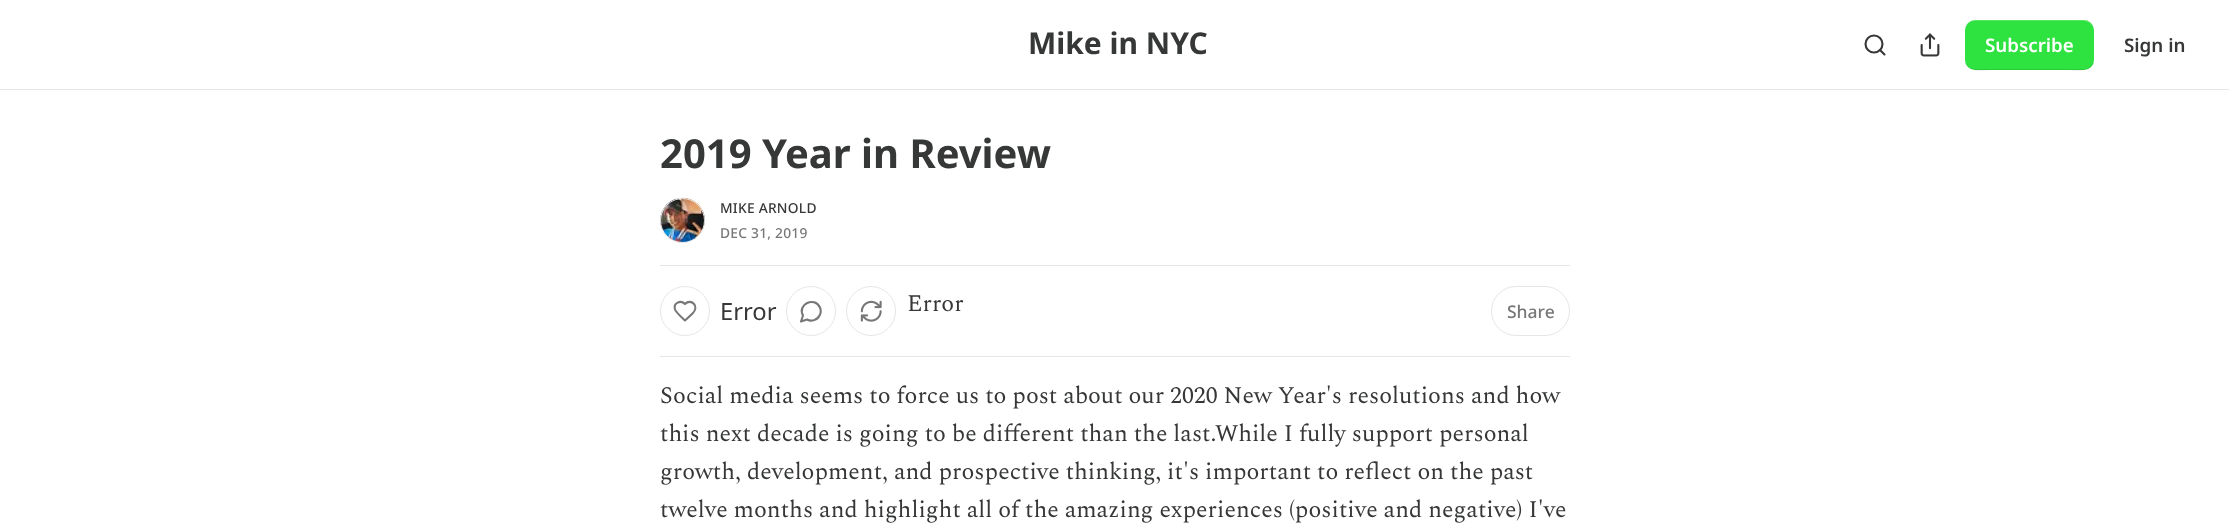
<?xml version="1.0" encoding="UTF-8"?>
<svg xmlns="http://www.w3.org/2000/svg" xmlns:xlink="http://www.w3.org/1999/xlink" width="2229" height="528">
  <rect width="100%" height="100%" fill="#ffffff" />
  <rect y="89" width="2229" height="1" fill="#e6e6e6" />
  <circle cx="1874" cy="44" r="8.5" fill="none" stroke="#363737" stroke-width="2.1" />
  <path d="M 1884.5 54.5 l -4.5 -4.5" fill="none" stroke="#363737" stroke-width="2.1" stroke-linecap="round" stroke-linejoin="round" />
  <image x="1920" y="33" width="20" height="24" xlink:href="image1.png" />
  <rect x="1965" y="20" width="129" height="50" rx="10" fill="#2ee240" />
  <path d="M 1965 59 c 0 15 18 11 28 11 h 73 c 10 0 28 4 28 -11 c 0 5 -5 10 -10 10 h -109 c -6 0 -10 -5 -10 -10 z" fill="#000000" fill-opacity="0.1" />
  <path d="M 1975 21 h 109 c 5 0 10 5 10 10 c 0 -15 -18 -11 -28 -11 h -73 c -10 0 -28 -4 -28 11 c 0 -5 4 -10 10 -10 z" fill="#ffffff" fill-opacity="0.2" />
  <circle cx="682.5" cy="220.5" r="22" fill="none" stroke="#e6e6e6" />
  <image x="660" y="197" width="45" height="46" xlink:href="image2.png" />
  <circle cx="682.5" cy="220.5" r="22" fill="none" stroke="#e6e6e6" />
  <rect x="660" y="265" width="910" height="1" fill="#e6e6e6" />
  <rect x="660" y="356" width="910" height="1" fill="#e6e6e6" />
  <circle cx="685" cy="311" r="24.5" fill="none" stroke="#e6e6e6" />
  <path d="M 692.5 313.5 c 7.5 -7.5 -1.5 -15.5 -7.5 -9.5 c -4.5 -4.5 -12 -1 -10 5.5 c 1 3 7.5 8.5 10 11 z" fill="none" stroke="#777777" stroke-width="2.1" stroke-linecap="round" stroke-linejoin="round" />
  <circle cx="811" cy="311" r="24.5" fill="none" stroke="#e6e6e6" />
  <path d="M 807 319.5 c 4.5 2.5 10.5 0.5 12.5 -4 c 1.5 -2.5 1.5 -5.5 0.5 -8 c -5.5 -11.5 -23 -3 -17 8 l -2 6 z" fill="none" stroke="#777777" stroke-width="2.1" stroke-linecap="round" stroke-linejoin="round" />
  <circle cx="871" cy="311" r="24.5" fill="none" stroke="#e6e6e6" />
  <image x="860" y="300" width="22" height="22" xlink:href="image3.png" />
  <rect x="1491.5" y="286.5" width="78" height="49" rx="24.5" fill="none" stroke="#e6e6e6" />
  <text x="1028" y="54" style="font-family: Noto Sans; font-size: 30px; font-weight: bold; fill: #363737">Mike in NYC</text>
  <text x="1985" y="52" style="font-family: Noto Sans; font-size: 18.75px; font-weight: 600; fill: #ffffff">Subscribe</text>
  <text x="2124" y="52" style="font-family: Noto Sans; font-size: 18.75px; font-weight: 600; fill: #363737">Sign in</text>
  <text x="660" y="168" style="font-family: Noto Sans; font-size: 40px; font-weight: bold; fill: #363737">2019 Year in Review</text>
  <text x="720" y="213" style="font-family: Noto Sans; font-size: 13.75px; font-weight: 500; letter-spacing: 0.25px; fill: #363737">MIKE ARNOLD</text>
  <text x="720" y="238" style="font-family: Noto Sans; font-size: 13.75px; font-weight: 500; letter-spacing: 0.25px; fill: #777777">DEC 31, 2019</text>
  <text x="720" y="320" style="font-family: Noto Sans; font-size: 23.75px; fill: #363737">Error</text>
  <text x="907" y="311" style="font-family: Spectral; font-size: 23.75px; fill: #363737">Error</text>
  <text x="1507" y="318" style="font-family: Noto Sans; font-size: 17.5px; font-weight: 500; fill: #777777">Share</text>
  <text x="660" y="403" style="font-family: Spectral; font-size: 23.75px; fill: #363737">Social media seems to force us to post about our 2020 New Year's resolutions and how</text>
  <text x="660" y="441" style="font-family: Spectral; font-size: 23.75px; fill: #363737">this next decade is going to be different than the last.While I fully support personal</text>
  <text x="660" y="479" style="font-family: Spectral; font-size: 23.75px; fill: #363737">growth, development, and prospective thinking, it's important to reflect on the past</text>
  <text x="660" y="517" style="font-family: Spectral; font-size: 23.75px; fill: #363737">twelve months and highlight all of the amazing experiences (positive and negative) I've</text>
</svg>
